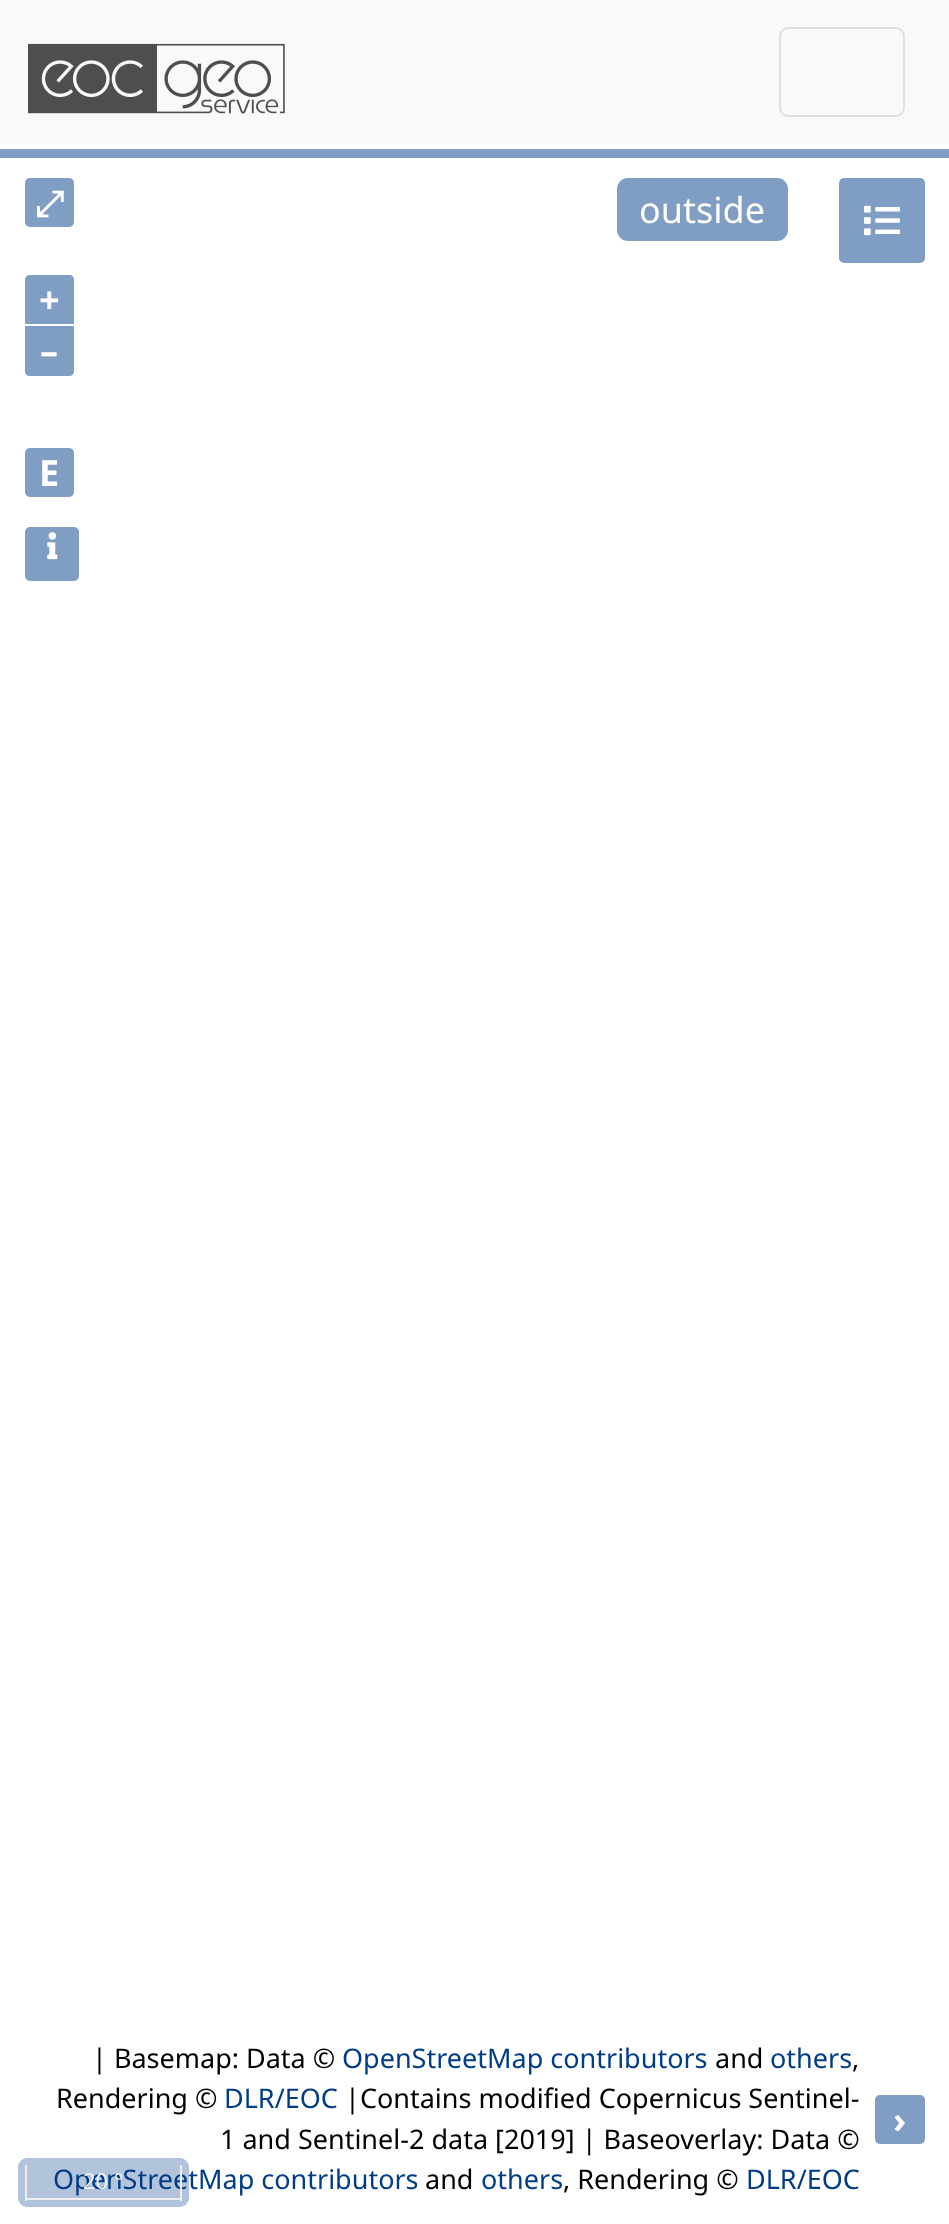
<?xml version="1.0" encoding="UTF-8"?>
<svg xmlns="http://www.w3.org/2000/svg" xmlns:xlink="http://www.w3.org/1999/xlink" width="949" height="2224">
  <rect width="100%" height="100%" fill="#ffffff" />
  <rect width="949" height="144" fill="#f8f9fa" />
  <image x="28" y="43" width="257" height="71" xlink:href="image1.png" />
  <rect x="780" y="28" width="124" height="88" rx="8" fill="none" stroke="#dfe0e1" stroke-width="2" />
  <rect y="149" width="949" height="9" fill="#809ec4" />
  <rect x="25" y="178" width="49" height="49" rx="5" fill="#809ec4" />
  <rect x="617" y="178" width="171" height="63" rx="11" fill="#809ec4" />
  <rect x="839" y="178" width="86" height="85" rx="5" fill="#809ec4" />
  <image x="864" y="205" width="36" height="31" xlink:href="image2.png" />
  <path d="M 30 275 h 39 c 3 0 5 2 5 5 v 44 h -49 v -44 c 0 -3 2 -5 5 -5 z" fill="#809ec4" />
  <path d="M 25 326 h 49 v 45 c 0 3 -2 5 -5 5 h -39 c -3 0 -5 -2 -5 -5 z" fill="#809ec4" />
  <rect x="25" y="448" width="49" height="49" rx="5" fill="#809ec4" />
  <rect x="25" y="527" width="54" height="54" rx="5" fill="#809ec4" />
  <image x="47" y="532" width="11" height="28" xlink:href="image3.png" />
  <rect x="875" y="2095" width="50" height="49" rx="5" fill="#809ec4" />
  <text x="35" y="216" style="font-family: FreeSerif; font-size: 36px; font-weight: bold; fill: #ffffff">⤢</text>
  <text x="639" y="223" style="font-family: Noto Sans; font-size: 36px; fill: #ffffff">outside</text>
  <text x="39" y="313" style="font-family: Noto Sans; font-size: 36px; font-weight: bold; fill: #ffffff">+</text>
  <text x="40" y="364" style="font-family: Noto Sans; font-size: 36px; font-weight: bold; fill: #ffffff">–</text>
  <text x="39" y="486" style="font-family: Noto Sans; font-size: 36px; font-weight: bold; fill: #ffffff">E</text>
  <text x="92" y="2068" style="font-family: Noto Sans; font-size: 27px; fill: #000000">| Basemap: Data ©</text>
  <text x="342" y="2068" style="font-family: Noto Sans; font-size: 27px; fill: #003c88">OpenStreetMap contributors</text>
  <text x="715" y="2068" style="font-family: Noto Sans; font-size: 27px; fill: #000000">and</text>
  <text x="770" y="2068" style="font-family: Noto Sans; font-size: 27px; fill: #003c88">others</text>
  <text x="852" y="2068" style="font-family: Noto Sans; font-size: 27px; fill: #000000">,</text>
  <text x="56" y="2108" style="font-family: Noto Sans; font-size: 27px; fill: #000000">Rendering ©</text>
  <text x="224" y="2108" style="font-family: Noto Sans; font-size: 27px; fill: #003c88">DLR/EOC</text>
  <text x="345" y="2108" style="font-family: Noto Sans; font-size: 27px; fill: #000000">|Contains modified Copernicus Sentinel-</text>
  <text x="220" y="2149" style="font-family: Noto Sans; font-size: 27px; fill: #000000">1 and Sentinel-2 data [2019] | Baseoverlay: Data ©</text>
  <text x="53" y="2189" style="font-family: Noto Sans; font-size: 27px; fill: #003c88">OpenStreetMap contributors</text>
  <text x="425" y="2189" style="font-family: Noto Sans; font-size: 27px; fill: #000000">and</text>
  <text x="481" y="2189" style="font-family: Noto Sans; font-size: 27px; fill: #003c88">others</text>
  <text x="563" y="2189" style="font-family: Noto Sans; font-size: 27px; fill: #000000">, Rendering ©</text>
  <text x="746" y="2189" style="font-family: Noto Sans; font-size: 27px; fill: #003c88">DLR/EOC</text>
  <text x="893" y="2133" style="font-family: Noto Sans; font-size: 36px; font-weight: bold; fill: #ffffff">›</text>
  <rect x="18" y="2158" width="171" height="49" rx="9" fill="#003c88" fill-opacity="0.3" />
  <rect x="180" y="2165" width="2" height="36" fill="#eeeeee" />
  <rect x="25" y="2198" width="157" height="2" fill="#eeeeee" />
  <rect x="25" y="2165" width="2" height="36" fill="#eeeeee" />
  <text x="83" y="2189" style="font-family: Noto Sans; font-size: 22px; fill: #eeeeee">20 °</text>
</svg>
